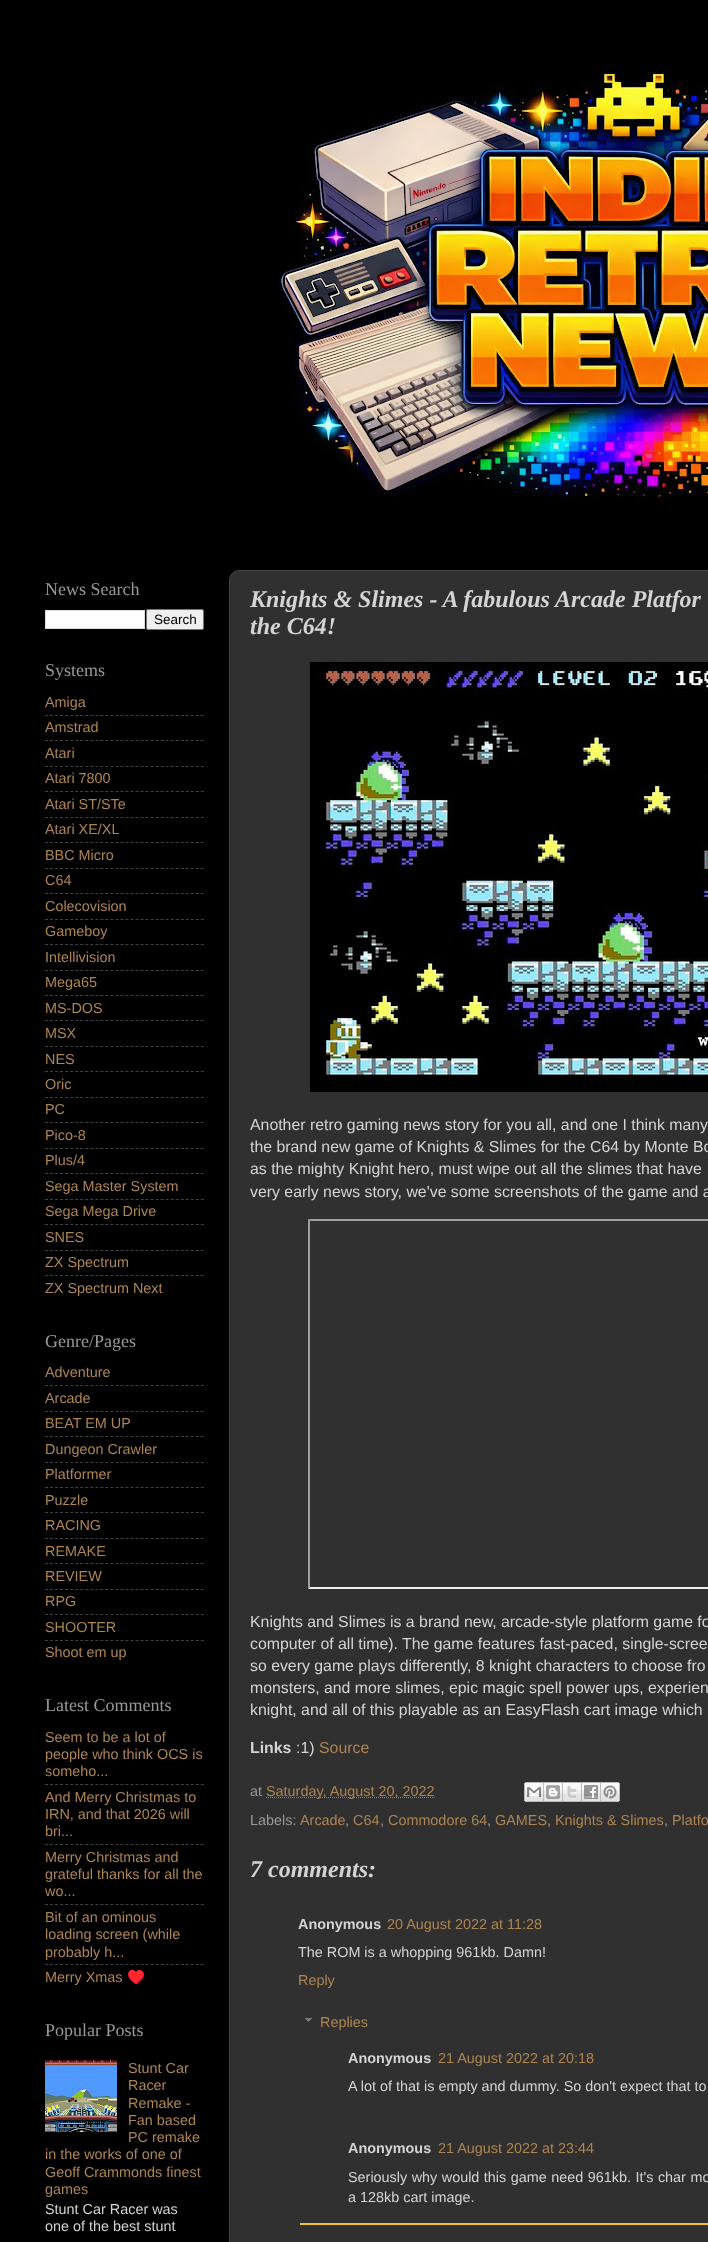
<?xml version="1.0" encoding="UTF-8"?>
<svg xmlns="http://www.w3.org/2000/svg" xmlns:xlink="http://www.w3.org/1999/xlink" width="708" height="2242">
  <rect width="100%" height="100%" fill="#000000" />
  <image x="278" y="72" width="430" height="432" xlink:href="image1.png" />
  <rect x="45.5" y="610.5" width="99" height="18" fill="#ffffff" stroke="#dddddd" />
  <rect x="146.5" y="609.5" width="57" height="20" rx="1.5" fill="#efefef" stroke="#767676" />
  <path d="M 45 715.5 h 159" fill="none" stroke="#404040" stroke-dasharray="3 2.03" />
  <path d="M 45 740.5 h 159" fill="none" stroke="#404040" stroke-dasharray="3 2.03" />
  <path d="M 45 766.5 h 159" fill="none" stroke="#404040" stroke-dasharray="3 2.03" />
  <path d="M 45 791.5 h 159" fill="none" stroke="#404040" stroke-dasharray="3 2.03" />
  <path d="M 45 817.5 h 159" fill="none" stroke="#404040" stroke-dasharray="3 2.03" />
  <path d="M 45 842.5 h 159" fill="none" stroke="#404040" stroke-dasharray="3 2.03" />
  <path d="M 45 868.5 h 159" fill="none" stroke="#404040" stroke-dasharray="3 2.03" />
  <path d="M 45 893.5 h 159" fill="none" stroke="#404040" stroke-dasharray="3 2.03" />
  <path d="M 45 919.5 h 159" fill="none" stroke="#404040" stroke-dasharray="3 2.03" />
  <path d="M 45 944.5 h 159" fill="none" stroke="#404040" stroke-dasharray="3 2.03" />
  <path d="M 45 970.5 h 159" fill="none" stroke="#404040" stroke-dasharray="3 2.03" />
  <path d="M 45 995.5 h 159" fill="none" stroke="#404040" stroke-dasharray="3 2.03" />
  <path d="M 45 1020.5 h 159" fill="none" stroke="#404040" stroke-dasharray="3 2.03" />
  <path d="M 45 1046.5 h 159" fill="none" stroke="#404040" stroke-dasharray="3 2.03" />
  <path d="M 45 1071.5 h 159" fill="none" stroke="#404040" stroke-dasharray="3 2.03" />
  <path d="M 45 1097.5 h 159" fill="none" stroke="#404040" stroke-dasharray="3 2.03" />
  <path d="M 45 1122.5 h 159" fill="none" stroke="#404040" stroke-dasharray="3 2.03" />
  <path d="M 45 1148.5 h 159" fill="none" stroke="#404040" stroke-dasharray="3 2.03" />
  <path d="M 45 1173.5 h 159" fill="none" stroke="#404040" stroke-dasharray="3 2.03" />
  <path d="M 45 1199.5 h 159" fill="none" stroke="#404040" stroke-dasharray="3 2.03" />
  <path d="M 45 1224.5 h 159" fill="none" stroke="#404040" stroke-dasharray="3 2.03" />
  <path d="M 45 1250.5 h 159" fill="none" stroke="#404040" stroke-dasharray="3 2.03" />
  <path d="M 45 1275.5 h 159" fill="none" stroke="#404040" stroke-dasharray="3 2.03" />
  <path d="M 45 1385.5 h 159" fill="none" stroke="#404040" stroke-dasharray="3 2.03" />
  <path d="M 45 1411.5 h 159" fill="none" stroke="#404040" stroke-dasharray="3 2.03" />
  <path d="M 45 1436.5 h 159" fill="none" stroke="#404040" stroke-dasharray="3 2.03" />
  <path d="M 45 1462.5 h 159" fill="none" stroke="#404040" stroke-dasharray="3 2.03" />
  <path d="M 45 1487.5 h 159" fill="none" stroke="#404040" stroke-dasharray="3 2.03" />
  <path d="M 45 1512.5 h 159" fill="none" stroke="#404040" stroke-dasharray="3 2.03" />
  <path d="M 45 1538.5 h 159" fill="none" stroke="#404040" stroke-dasharray="3 2.03" />
  <path d="M 45 1563.5 h 159" fill="none" stroke="#404040" stroke-dasharray="3 2.03" />
  <path d="M 45 1589.5 h 159" fill="none" stroke="#404040" stroke-dasharray="3 2.03" />
  <path d="M 45 1614.5 h 159" fill="none" stroke="#404040" stroke-dasharray="3 2.03" />
  <path d="M 45 1640.5 h 159" fill="none" stroke="#404040" stroke-dasharray="3 2.03" />
  <path d="M 45 1784.5 h 159" fill="none" stroke="#404040" stroke-dasharray="3 2.03" />
  <path d="M 45 1844.5 h 159" fill="none" stroke="#404040" stroke-dasharray="3 2.03" />
  <path d="M 45 1904.5 h 159" fill="none" stroke="#404040" stroke-dasharray="3 2.03" />
  <path d="M 45 1964.5 h 159" fill="none" stroke="#404040" stroke-dasharray="3 2.03" />
  <image x="45" y="2060" width="72" height="72" xlink:href="image2.png" />
  <rect x="229.5" y="570.5" width="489" height="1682" rx="9.5" fill="#303030" stroke="#444444" />
  <image x="310" y="662" width="398" height="430" xlink:href="image3.png" />
  <path d="M 308 1219 h 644 l -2 2 h -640 z" fill="#9f9f9f" />
  <path d="M 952 1589 h -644 l 2 -2 h 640 z" fill="#eeeeee" />
  <path d="M 308 1589 v -370 l 2 2 v 366 z" fill="#9f9f9f" />
  <path d="M 266 1797.5 h 168.5" fill="none" stroke="#ae8552" stroke-dasharray="1 1" />
  <image x="524" y="1782" width="20" height="20" xlink:href="image4.png" />
  <image x="544" y="1782" width="19" height="20" xlink:href="image5.png" />
  <image x="563" y="1782" width="19" height="20" xlink:href="image6.png" />
  <image x="582" y="1782" width="19" height="20" xlink:href="image7.png" />
  <image x="601" y="1782" width="19" height="20" xlink:href="image8.png" />
  <image x="305" y="2018" width="7" height="4" xlink:href="image9.png" />
  <rect x="300" y="2223" width="408" height="2" fill="#f1c232" />
  <text x="45" y="595" style="font-family: Liberation Serif; font-size: 18px; fill: #999999">News Search</text>
  <text x="154" y="624" style="font-family: Liberation Sans; font-size: 13.5px; fill: #000000">Search</text>
  <text x="45" y="676" style="font-family: Liberation Serif; font-size: 18px; fill: #999999">Systems</text>
  <text x="45" y="707" style="font-family: Liberation Sans; font-size: 14.4px; fill: #ae8552">Amiga</text>
  <text x="45" y="732" style="font-family: Liberation Sans; font-size: 14.4px; fill: #ae8552">Amstrad</text>
  <text x="45" y="758" style="font-family: Liberation Sans; font-size: 14.4px; fill: #ae8552">Atari</text>
  <text x="45" y="783" style="font-family: Liberation Sans; font-size: 14.4px; fill: #ae8552">Atari 7800</text>
  <text x="45" y="809" style="font-family: Liberation Sans; font-size: 14.4px; fill: #ae8552">Atari ST/STe</text>
  <text x="45" y="834" style="font-family: Liberation Sans; font-size: 14.4px; fill: #ae8552">Atari XE/XL</text>
  <text x="45" y="860" style="font-family: Liberation Sans; font-size: 14.4px; fill: #ae8552">BBC Micro</text>
  <text x="45" y="885" style="font-family: Liberation Sans; font-size: 14.4px; fill: #ae8552">C64</text>
  <text x="45" y="911" style="font-family: Liberation Sans; font-size: 14.4px; fill: #ae8552">Colecovision</text>
  <text x="45" y="936" style="font-family: Liberation Sans; font-size: 14.4px; fill: #ae8552">Gameboy</text>
  <text x="45" y="962" style="font-family: Liberation Sans; font-size: 14.4px; fill: #ae8552">Intellivision</text>
  <text x="45" y="987" style="font-family: Liberation Sans; font-size: 14.4px; fill: #ae8552">Mega65</text>
  <text x="45" y="1013" style="font-family: Liberation Sans; font-size: 14.4px; fill: #ae8552">MS-DOS</text>
  <text x="45" y="1038" style="font-family: Liberation Sans; font-size: 14.4px; fill: #ae8552">MSX</text>
  <text x="45" y="1064" style="font-family: Liberation Sans; font-size: 14.4px; fill: #ae8552">NES</text>
  <text x="45" y="1089" style="font-family: Liberation Sans; font-size: 14.4px; fill: #ae8552">Oric</text>
  <text x="45" y="1114" style="font-family: Liberation Sans; font-size: 14.4px; fill: #ae8552">PC</text>
  <text x="45" y="1140" style="font-family: Liberation Sans; font-size: 14.4px; fill: #ae8552">Pico-8</text>
  <text x="45" y="1165" style="font-family: Liberation Sans; font-size: 14.4px; fill: #ae8552">Plus/4</text>
  <text x="45" y="1191" style="font-family: Liberation Sans; font-size: 14.4px; fill: #ae8552">Sega Master System</text>
  <text x="45" y="1216" style="font-family: Liberation Sans; font-size: 14.4px; fill: #ae8552">Sega Mega Drive</text>
  <text x="45" y="1242" style="font-family: Liberation Sans; font-size: 14.4px; fill: #ae8552">SNES</text>
  <text x="45" y="1267" style="font-family: Liberation Sans; font-size: 14.4px; fill: #ae8552">ZX Spectrum</text>
  <text x="45" y="1293" style="font-family: Liberation Sans; font-size: 14.4px; fill: #ae8552">ZX Spectrum Next</text>
  <text x="45" y="1347" style="font-family: Liberation Serif; font-size: 18px; fill: #999999">Genre/Pages</text>
  <text x="45" y="1377" style="font-family: Liberation Sans; font-size: 14.4px; fill: #ae8552">Adventure</text>
  <text x="45" y="1403" style="font-family: Liberation Sans; font-size: 14.4px; fill: #ae8552">Arcade</text>
  <text x="45" y="1428" style="font-family: Liberation Sans; font-size: 14.4px; fill: #ae8552">BEAT EM UP</text>
  <text x="45" y="1454" style="font-family: Liberation Sans; font-size: 14.4px; fill: #ae8552">Dungeon Crawler</text>
  <text x="45" y="1479" style="font-family: Liberation Sans; font-size: 14.4px; fill: #ae8552">Platformer</text>
  <text x="45" y="1505" style="font-family: Liberation Sans; font-size: 14.4px; fill: #ae8552">Puzzle</text>
  <text x="45" y="1530" style="font-family: Liberation Sans; font-size: 14.4px; fill: #ae8552">RACING</text>
  <text x="45" y="1556" style="font-family: Liberation Sans; font-size: 14.4px; fill: #ae8552">REMAKE</text>
  <text x="45" y="1581" style="font-family: Liberation Sans; font-size: 14.4px; fill: #ae8552">REVIEW</text>
  <text x="45" y="1606" style="font-family: Liberation Sans; font-size: 14.4px; fill: #ae8552">RPG</text>
  <text x="45" y="1632" style="font-family: Liberation Sans; font-size: 14.4px; fill: #ae8552">SHOOTER</text>
  <text x="45" y="1657" style="font-family: Liberation Sans; font-size: 14.4px; fill: #ae8552">Shoot em up</text>
  <text x="45" y="1711" style="font-family: Liberation Serif; font-size: 18px; fill: #999999">Latest Comments</text>
  <text x="45" y="1742" style="font-family: Liberation Sans; font-size: 14.4px; fill: #ae8552">Seem to be a lot of</text>
  <text x="45" y="1759" style="font-family: Liberation Sans; font-size: 14.4px; fill: #ae8552">people who think OCS is</text>
  <text x="45" y="1776" style="font-family: Liberation Sans; font-size: 14.4px; fill: #ae8552">someho...</text>
  <text x="45" y="1802" style="font-family: Liberation Sans; font-size: 14.4px; fill: #ae8552">And Merry Christmas to</text>
  <text x="45" y="1819" style="font-family: Liberation Sans; font-size: 14.4px; fill: #ae8552">IRN, and that 2026 will</text>
  <text x="45" y="1836" style="font-family: Liberation Sans; font-size: 14.4px; fill: #ae8552">bri...</text>
  <text x="45" y="1862" style="font-family: Liberation Sans; font-size: 14.4px; fill: #ae8552">Merry Christmas and</text>
  <text x="45" y="1879" style="font-family: Liberation Sans; font-size: 14.4px; fill: #ae8552">grateful thanks for all the</text>
  <text x="45" y="1896" style="font-family: Liberation Sans; font-size: 14.4px; fill: #ae8552">wo...</text>
  <text x="45" y="1922" style="font-family: Liberation Sans; font-size: 14.4px; fill: #ae8552">Bit of an ominous</text>
  <text x="45" y="1939" style="font-family: Liberation Sans; font-size: 14.4px; fill: #ae8552">loading screen (while</text>
  <text x="45" y="1957" style="font-family: Liberation Sans; font-size: 14.4px; fill: #ae8552">probably h...</text>
  <text x="45" y="1982" style="font-family: Liberation Sans; font-size: 14.4px; fill: #ae8552">Merry Xmas</text>
  <text x="127" y="1982" style="font-family: Noto Color Emoji; font-size: 14.4px; fill: #ae8552">♥️</text>
  <text x="45" y="2036" style="font-family: Liberation Serif; font-size: 18px; fill: #999999">Popular Posts</text>
  <text x="128" y="2073" style="font-family: Liberation Sans; font-size: 14.4px; fill: #ae8552">Stunt Car</text>
  <text x="128" y="2090" style="font-family: Liberation Sans; font-size: 14.4px; fill: #ae8552">Racer</text>
  <text x="128" y="2108" style="font-family: Liberation Sans; font-size: 14.4px; fill: #ae8552">Remake -</text>
  <text x="128" y="2125" style="font-family: Liberation Sans; font-size: 14.4px; fill: #ae8552">Fan based</text>
  <text x="128" y="2142" style="font-family: Liberation Sans; font-size: 14.4px; fill: #ae8552">PC remake</text>
  <text x="45" y="2159" style="font-family: Liberation Sans; font-size: 14.4px; fill: #ae8552">in the works of one of</text>
  <text x="45" y="2177" style="font-family: Liberation Sans; font-size: 14.4px; fill: #ae8552">Geoff Crammonds finest</text>
  <text x="45" y="2194" style="font-family: Liberation Sans; font-size: 14.4px; fill: #ae8552">games</text>
  <text x="45" y="2214" style="font-family: Liberation Sans; font-size: 14.4px; fill: #d4d4d4">Stunt Car Racer was</text>
  <text x="45" y="2231" style="font-family: Liberation Sans; font-size: 14.4px; fill: #d4d4d4">one of the best stunt</text>
  <text x="250" y="607" style="font-family: Liberation Serif; font-size: 24px; font-weight: bold; font-style: italic; fill: #d4d4d4">Knights &amp; Slimes - A fabulous Arcade Platfor</text>
  <text x="250" y="634" style="font-family: Liberation Serif; font-size: 24px; font-weight: bold; font-style: italic; fill: #d4d4d4">the C64!</text>
  <text x="250" y="1130" style="font-family: Liberation Sans; font-size: 15.85px; fill: #d4d4d4">Another retro gaming news story for you all, and one I think many</text>
  <text x="250" y="1152" style="font-family: Liberation Sans; font-size: 15.85px; fill: #d4d4d4">the brand new game of Knights &amp; Slimes for the C64 by Monte Bo</text>
  <text x="250" y="1174" style="font-family: Liberation Sans; font-size: 15.85px; fill: #d4d4d4">as the mighty Knight hero, must wipe out all the slimes that have</text>
  <text x="250" y="1197" style="font-family: Liberation Sans; font-size: 15.85px; fill: #d4d4d4">very early news story, we've some screenshots of the game and a</text>
  <text x="250" y="1627" style="font-family: Liberation Sans; font-size: 15.85px; fill: #d4d4d4">Knights and Slimes is a brand new, arcade-style platform game fo</text>
  <text x="250" y="1649" style="font-family: Liberation Sans; font-size: 15.85px; fill: #d4d4d4">computer of all time). The game features fast-paced, single-scree</text>
  <text x="250" y="1671" style="font-family: Liberation Sans; font-size: 15.85px; fill: #d4d4d4">so every game plays differently, 8 knight characters to choose fro</text>
  <text x="250" y="1693" style="font-family: Liberation Sans; font-size: 15.85px; fill: #d4d4d4">monsters, and more slimes, epic magic spell power ups, experien</text>
  <text x="250" y="1715" style="font-family: Liberation Sans; font-size: 15.85px; fill: #d4d4d4">knight, and all of this playable as an EasyFlash cart image which</text>
  <text x="250" y="1753" style="font-family: Liberation Sans; font-size: 15.85px; font-weight: bold; fill: #d4d4d4">Links</text>
  <text x="296" y="1753" style="font-family: Liberation Sans; font-size: 15.85px; fill: #d4d4d4">:1)</text>
  <text x="319" y="1753" style="font-family: Liberation Sans; font-size: 15.85px; fill: #ae8552">Source</text>
  <text x="250" y="1796" style="font-family: Liberation Sans; font-size: 14.4px; fill: #999999">at</text>
  <text x="266" y="1796" style="font-family: Liberation Sans; font-size: 14.4px; fill: #ae8552">Saturday, August 20, 2022</text>
  <text x="250" y="1825" style="font-family: Liberation Sans; font-size: 14.4px; fill: #999999">Labels:</text>
  <text x="300" y="1825" style="font-family: Liberation Sans; font-size: 14.4px; fill: #ae8552">Arcade</text>
  <text x="345" y="1825" style="font-family: Liberation Sans; font-size: 14.4px; fill: #999999">,</text>
  <text x="353" y="1825" style="font-family: Liberation Sans; font-size: 14.4px; fill: #ae8552">C64</text>
  <text x="380" y="1825" style="font-family: Liberation Sans; font-size: 14.4px; fill: #999999">,</text>
  <text x="388" y="1825" style="font-family: Liberation Sans; font-size: 14.4px; fill: #ae8552">Commodore 64</text>
  <text x="487" y="1825" style="font-family: Liberation Sans; font-size: 14.4px; fill: #999999">,</text>
  <text x="495" y="1825" style="font-family: Liberation Sans; font-size: 14.4px; fill: #ae8552">GAMES</text>
  <text x="547" y="1825" style="font-family: Liberation Sans; font-size: 14.4px; fill: #999999">,</text>
  <text x="555" y="1825" style="font-family: Liberation Sans; font-size: 14.4px; fill: #ae8552">Knights &amp; Slimes</text>
  <text x="664" y="1825" style="font-family: Liberation Sans; font-size: 14.4px; fill: #999999">,</text>
  <text x="672" y="1825" style="font-family: Liberation Sans; font-size: 14.4px; fill: #ae8552">Platfo</text>
  <text x="250" y="1877" style="font-family: Liberation Serif; font-size: 24px; font-weight: bold; font-style: italic; fill: #d4d4d4">7 comments:</text>
  <text x="298" y="1929" style="font-family: Liberation Sans; font-size: 14.4px; font-weight: bold; fill: #d4d4d4">Anonymous</text>
  <text x="387" y="1929" style="font-family: Liberation Sans; font-size: 14.4px; fill: #ae8552">20 August 2022 at 11:28</text>
  <text x="298" y="1957" style="font-family: Liberation Sans; font-size: 14.4px; fill: #d4d4d4">The ROM is a whopping 961kb. Damn!</text>
  <text x="298" y="1985" style="font-family: Liberation Sans; font-size: 14.4px; fill: #ae8552">Reply</text>
  <text x="320" y="2027" style="font-family: Liberation Sans; font-size: 14.4px; fill: #ae8552">Replies</text>
  <text x="348" y="2063" style="font-family: Liberation Sans; font-size: 14.4px; font-weight: bold; fill: #d4d4d4">Anonymous</text>
  <text x="438" y="2063" style="font-family: Liberation Sans; font-size: 14.4px; fill: #ae8552">21 August 2022 at 20:18</text>
  <text x="348" y="2091" style="font-family: Liberation Sans; font-size: 14.4px; fill: #d4d4d4">A lot of that is empty and dummy. So don't expect that to</text>
  <text x="348" y="2153" style="font-family: Liberation Sans; font-size: 14.4px; font-weight: bold; fill: #d4d4d4">Anonymous</text>
  <text x="438" y="2153" style="font-family: Liberation Sans; font-size: 14.4px; fill: #ae8552">21 August 2022 at 23:44</text>
  <text x="348" y="2182" word-spacing="0.5" style="font-family: Liberation Sans; font-size: 14.4px; fill: #d4d4d4">Seriously why would this game need 961kb. It's char mo</text>
  <text x="348" y="2202" style="font-family: Liberation Sans; font-size: 14.4px; fill: #d4d4d4">a 128kb cart image.</text>
</svg>
